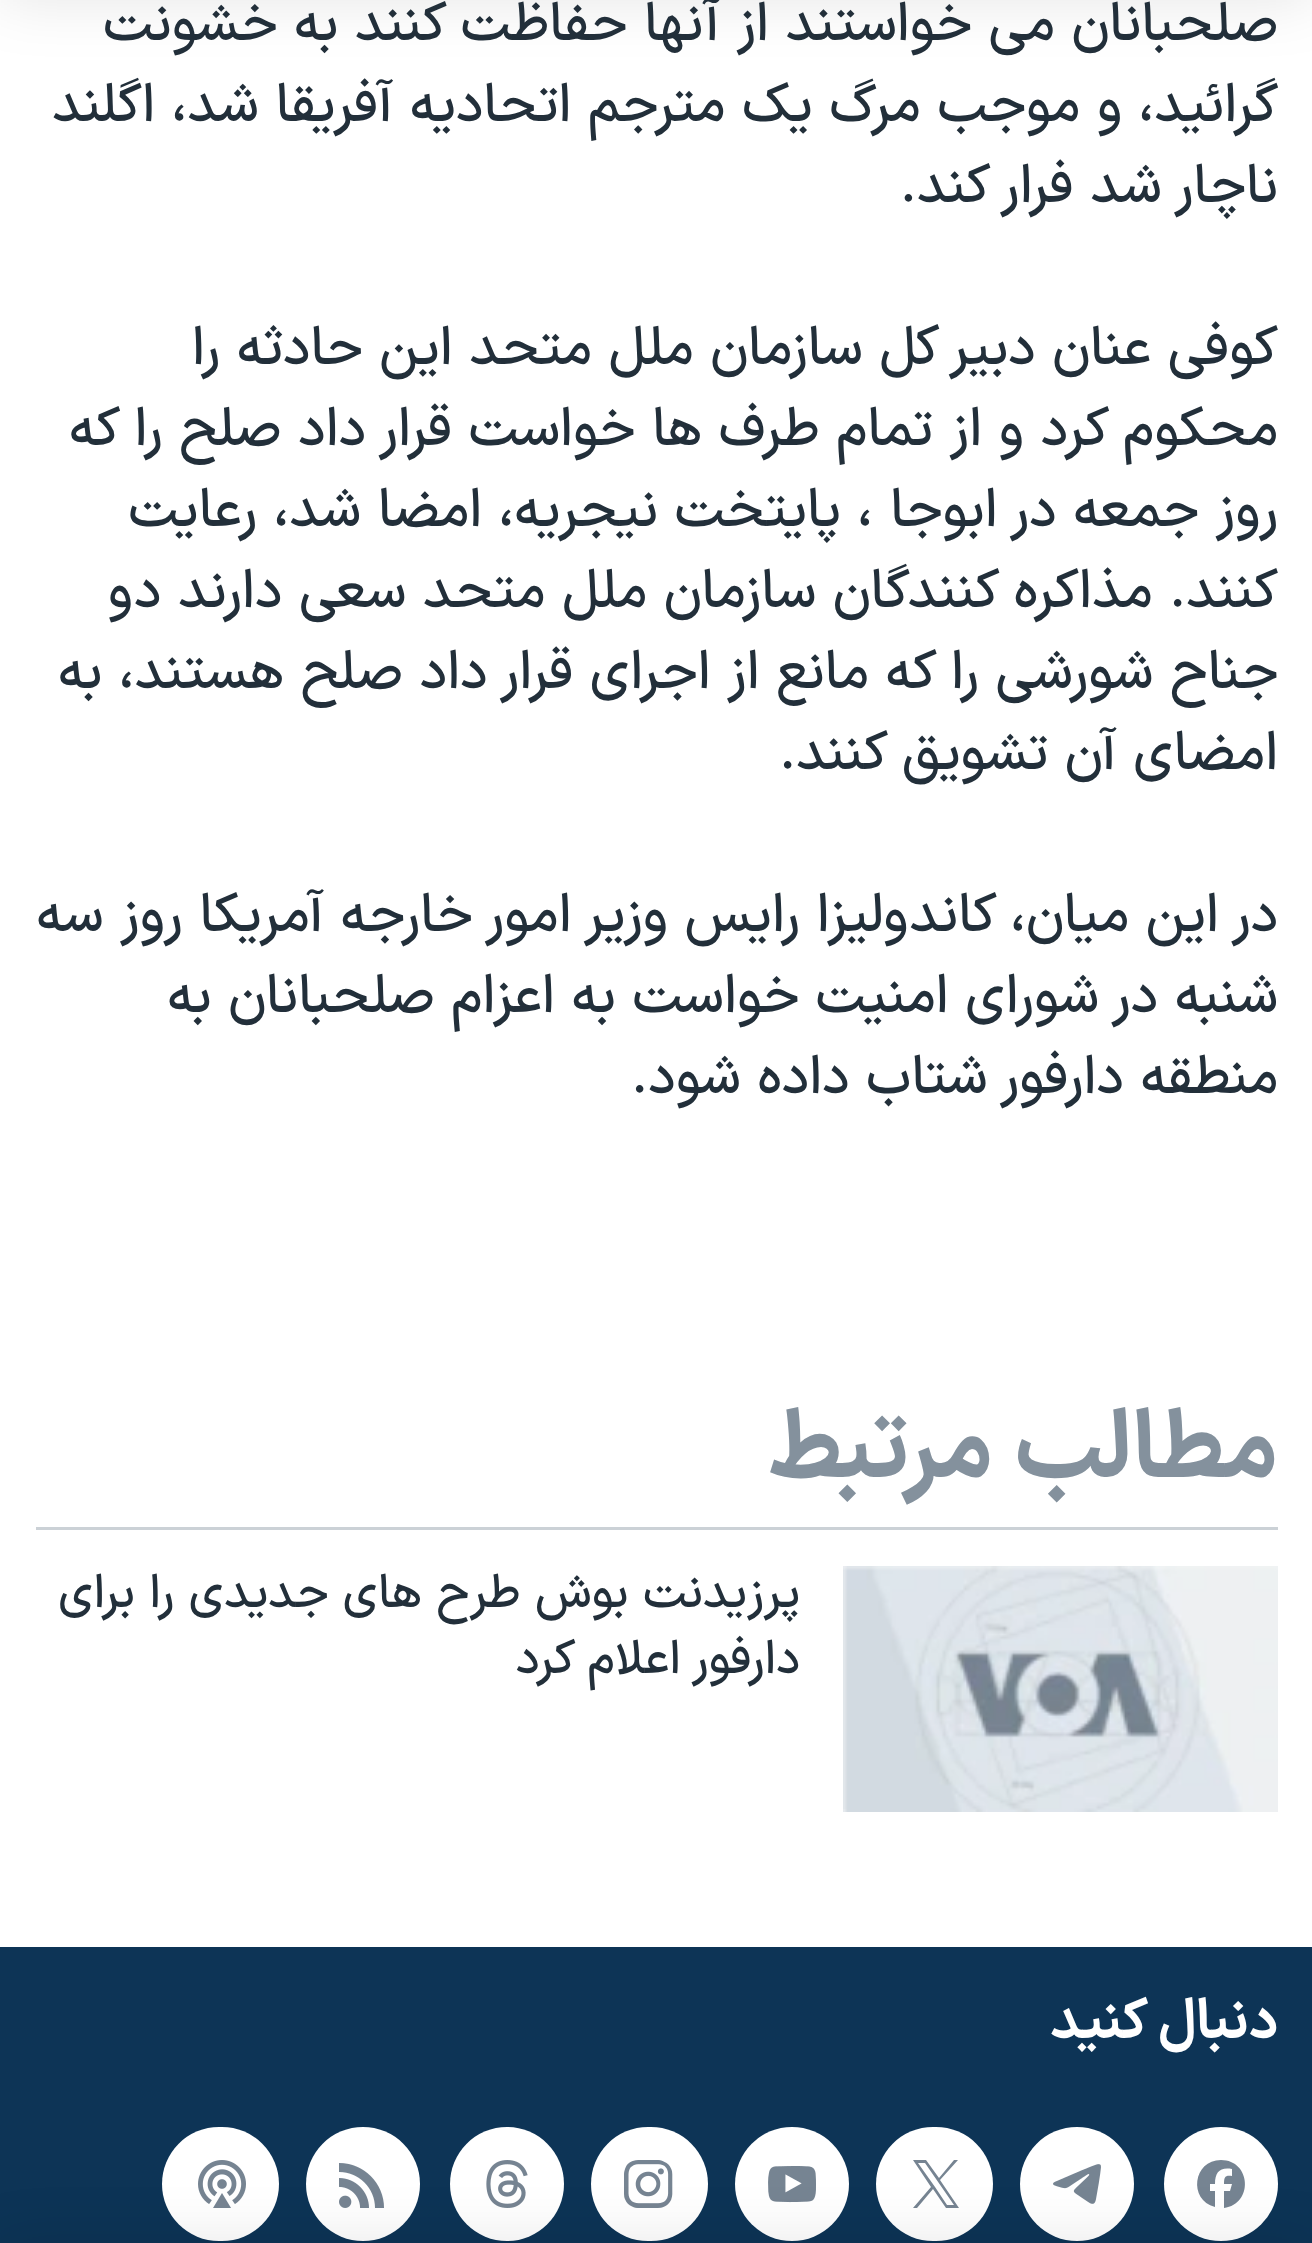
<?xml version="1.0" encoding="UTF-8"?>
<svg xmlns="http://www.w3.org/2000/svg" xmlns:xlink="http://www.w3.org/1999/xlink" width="1312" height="2243">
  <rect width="100%" height="100%" fill="#ffffff" />
  <rect y="-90" width="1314" height="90" fill="#000000" fill-opacity="0.1" filter="blur(30px)" />
  <rect y="1947" width="1312" height="296" fill="#0d3456" />
  <circle cx="1221" cy="2184" r="57" fill="#ffffff" />
  <path d="M 1221 2160 c -28 0 -33 40 -6 47 v -16 h -5 v -7 h 5 c 0 -12 5 -17 17 -15 v 7 c -7 -1 -8 1 -8 8 h 8 l -2 7 h -6 v 17 c 30 -4 27 -48 -3 -48 z" fill="#768492" />
  <circle cx="1077" cy="2184" r="57" fill="#ffffff" />
  <image x="1053" y="2164" width="48" height="40" xlink:href="image2.png" />
  <rect x="876" y="2127" width="117" height="114" rx="57" fill="#ffffff" />
  <path d="M 940 2180 l 18 -20 h -4 l -15 18 l -13 -18 h -13 l 18 27 l -18 21 h 4 l 16 -19 l 13 19 h 13 z m -5 7 l -17 -24 h 7 l 29 42 h -7 z" fill="#768492" />
  <circle cx="792" cy="2184" r="57" fill="#ffffff" />
  <image x="768" y="2166" width="48" height="37" xlink:href="image3.png" />
  <rect x="591" y="2127" width="117" height="114" rx="57" fill="#ffffff" />
  <image x="624" y="2160" width="49" height="48" xlink:href="image4.png" />
  <circle cx="507" cy="2184" r="57" fill="#ffffff" />
  <image x="486" y="2160" width="42" height="48" xlink:href="image5.png" />
  <circle cx="363" cy="2184" r="57" fill="#ffffff" />
  <image x="339" y="2163" width="45" height="45" xlink:href="image6.png" />
  <rect x="162" y="2127" width="117" height="114" rx="57" fill="#ffffff" />
  <image x="198" y="2160" width="48" height="48" xlink:href="image7.png" />
  <rect y="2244" width="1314" height="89" fill="#000000" fill-opacity="0.1" filter="blur(30px)" />
  <rect x="36" y="1527" width="1242" height="3" fill="#cbd1d6" />
  <rect x="843" y="1566" width="435" height="243" fill="#f6f7f8" />
  <image x="843" y="1566" width="435" height="246" xlink:href="image1.png" />
  <text x="1278" y="40" style="font-family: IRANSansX; font-size: 54px; font-weight: 500; direction: rtl; fill: #222f3a">صلحبانان می خواستند از آنها حفاظت کنند به خشونت</text>
  <text x="1278" y="121" style="font-family: IRANSansX; font-size: 54px; font-weight: 500; direction: rtl; fill: #222f3a">گرائيد، و موجب مرگ یک مترجم اتحادیه آفریقا شد، اگلند</text>
  <text x="1278" y="202" style="font-family: IRANSansX; font-size: 54px; font-weight: 500; direction: rtl; fill: #222f3a">ناچار شد فرار کند.</text>
  <text x="1278" y="364" style="font-family: IRANSansX; font-size: 54px; font-weight: 500; direction: rtl; fill: #222f3a">کوفی عنان دبیر کل سازمان ملل متحد این حادثه را</text>
  <text x="1278" y="445" style="font-family: IRANSansX; font-size: 54px; font-weight: 500; direction: rtl; fill: #222f3a">محکوم کرد و از تمام طرف ها خواست قرار داد صلح را که</text>
  <text x="1278" y="526" style="font-family: IRANSansX; font-size: 54px; font-weight: 500; direction: rtl; fill: #222f3a">روز جمعه در ابوجا ، پایتخت نیجریه، امضا شد، رعایت</text>
  <text x="1278" y="607" style="font-family: IRANSansX; font-size: 54px; font-weight: 500; direction: rtl; fill: #222f3a">کنند. مذاکره کنندگان سازمان ملل متحد سعی دارند دو</text>
  <text x="1278" y="688" style="font-family: IRANSansX; font-size: 54px; font-weight: 500; direction: rtl; fill: #222f3a">جناح شورشی را که مانع از اجرای قرار داد صلح هستند، به</text>
  <text x="1278" y="769" style="font-family: IRANSansX; font-size: 54px; font-weight: 500; direction: rtl; fill: #222f3a">امضای آن تشویق کنند.</text>
  <text x="1278" y="931" style="font-family: IRANSansX; font-size: 54px; font-weight: 500; direction: rtl; fill: #222f3a">در این میان، کاندولیزا رایس وزیر امور خارجه آمریکا روز سه</text>
  <text x="1278" y="1012" style="font-family: IRANSansX; font-size: 54px; font-weight: 500; direction: rtl; fill: #222f3a">شنبه در شورای امنیت خواست به اعزام صلحبانان به</text>
  <text x="1278" y="1093" style="font-family: IRANSansX; font-size: 54px; font-weight: 500; direction: rtl; fill: #222f3a">منطقه دارفور شتاب داده شود.</text>
  <text x="1278" y="1477" style="font-family: IRANSansX; font-size: 94.75px; font-weight: bold; direction: rtl; fill: #84919d">مطالب مرتبط</text>
  <text x="800" y="1607" style="font-family: IRANSansX; font-size: 47.25px; font-weight: 500; direction: rtl; fill: #222f3a">پرزيدنت بوش طرح های جديدی را برای</text>
  <text x="800" y="1673" style="font-family: IRANSansX; font-size: 47.25px; font-weight: 500; direction: rtl; fill: #222f3a">دارفور اعلام کرد</text>
  <text x="1278" y="2038" style="font-family: IRANSansX; font-size: 55.5px; font-weight: bold; direction: rtl; fill: #ffffff">دنبال کنید</text>
</svg>
